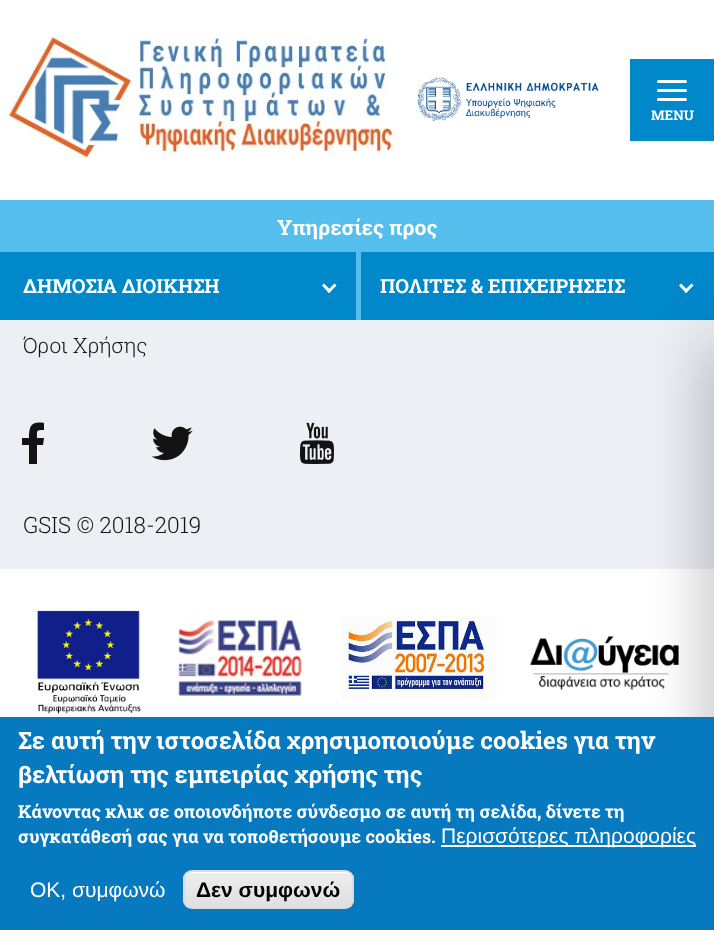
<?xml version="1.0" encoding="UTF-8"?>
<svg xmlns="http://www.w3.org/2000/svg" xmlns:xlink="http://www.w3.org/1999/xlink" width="714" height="930">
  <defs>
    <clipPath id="clip1"><rect x="183" y="870" width="171" height="39" rx="9" /></clipPath>
    <linearGradient id="g1" gradientUnits="userSpaceOnUse" x1="269" y1="872" x2="269" y2="908"><stop offset="0.05" stop-color="#ededed" /><stop offset="1" stop-color="#dfdfdf" /></linearGradient>
  </defs>
  <rect width="100%" height="100%" fill="#ffffff" />
  <image x="0" y="36" width="401" height="123" xlink:href="image1.png" />
  <image x="417" y="77" width="182" height="44" xlink:href="image2.png" />
  <rect x="630" y="59" width="84" height="82" fill="#0188ca" />
  <rect x="657" y="80" width="30" height="3" rx="1.5" fill="#ffffff" />
  <rect x="657" y="89" width="30" height="3" rx="1.5" fill="#ffffff" />
  <rect x="657" y="98" width="30" height="3" rx="1.5" fill="#ffffff" />
  <rect y="200" width="714" height="52" fill="#55beed" />
  <rect y="252" width="714" height="68" fill="#0188ca" />
  <path d="M 334.5 283.5 l 2 2 l -7.5 7.5 l -2 -2 z" fill="#ffffff" />
  <path d="M 324 283.5 l 7.5 7.5 l -2.5 2 l -7 -7.5 z" fill="#ffffff" />
  <rect x="356" y="252" width="5" height="68" fill="#55beed" />
  <path d="M 691.5 283.5 l 2 2 l -7.5 7.5 l -2 -2 z" fill="#ffffff" />
  <path d="M 681 283.5 l 7.5 7.5 l -2.5 2 l -7 -7.5 z" fill="#ffffff" />
  <rect y="320" width="714" height="249" fill="#ecf0f4" />
  <image x="529" y="636" width="150" height="54" xlink:href="image8.png" />
  <rect x="714" y="342" width="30" height="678" fill="#000000" fill-opacity="0.4" filter="blur(30px)" />
  <path d="M 37 464 h -8 v -19 h -7 v -7 h 7 c 0 -12 2 -17 15 -15 v 7 c -8 0 -7 0 -7 8 h 7 l -1 7 h -6 z" fill="#131313" />
  <image x="151" y="426" width="42" height="35" xlink:href="image3.png" />
  <image x="300" y="422" width="34" height="42" xlink:href="image4.png" />
  <image x="36" y="610" width="105" height="104" xlink:href="image5.png" />
  <image x="177" y="620" width="125" height="76" xlink:href="image6.png" />
  <image x="341" y="616" width="156" height="83" xlink:href="image7.png" />
  <rect y="717" width="714" height="213" fill="#0779bf" />
  <rect x="441" y="845" width="255" height="2" fill="#ffffff" />
  <g clip-path="url(#clip1)">
    <rect x="183" y="872" width="171" height="36" fill="url(#g1)" />
  </g>
  <path d="M 192 873 h 153 c 4 0 7 3 7 7 v 22 v 3 c 0 -2 1 -3 1 -5 v -20 c 0 -4 -4 -8 -8 -8 h -152 c -2 0 -4 1 -6 2 c 2 0 3 -1 5 -1 z" fill="#ffffff" />
  <rect x="184" y="871" width="169" height="37" rx="8" fill="none" stroke="#dcdcdc" stroke-width="2" />
  <text x="651" y="120" style="font-family: Roboto Slab; font-size: 13.5px; font-weight: bold; fill: #ffffff">MENU</text>
  <text x="277" y="235" style="font-family: Roboto Slab; font-size: 21px; font-weight: bold; fill: #ffffff">Υπηρεσίες προς</text>
  <text x="23" y="293" style="font-family: Roboto Slab; font-size: 19.5px; font-weight: bold; fill: #ffffff">ΔΗΜΟΣΙΑ ΔΙΟΙΚΗΣΗ</text>
  <text x="380" y="293" style="font-family: Roboto Slab; font-size: 19.5px; font-weight: bold; fill: #ffffff">ΠΟΛΙΤΕΣ &amp; ΕΠΙΧΕΙΡΗΣΕΙΣ</text>
  <text x="23" y="353" style="font-family: Roboto Slab; font-size: 21px; font-weight: 300; fill: #131313">Όροι Xρήσης</text>
  <text x="23" y="533" style="font-family: Roboto Slab; font-size: 22.5px; font-weight: 300; fill: #131313">GSIS © 2018-2019</text>
  <text x="18" y="749" style="font-family: Roboto Slab; font-size: 24px; font-weight: bold; fill: #ffffff">Σε αυτή την ιστοσελίδα χρησιμοποιούμε cookies για την</text>
  <text x="18" y="783" style="font-family: Roboto Slab; font-size: 24px; font-weight: bold; fill: #ffffff">βελτίωση της εμπειρίας χρήσης της</text>
  <text x="18" y="818" style="font-family: Roboto Slab; font-size: 18px; font-weight: bold; fill: #ffffff">Κάνοντας κλικ σε οποιονδήποτε σύνδεσμο σε αυτή τη σελίδα, δίνετε τη</text>
  <text x="18" y="843" style="font-family: Roboto Slab; font-size: 18px; font-weight: bold; fill: #ffffff">συγκατάθεσή σας για να τοποθετήσουμε cookies.</text>
  <text x="441" y="843" style="font-family: Liberation Sans; font-size: 21px; fill: #ffffff">Περισσότερες πληροφορίες</text>
  <text x="30" y="897" style="font-family: Liberation Sans; font-size: 21px; fill: #ffffff">OK, συμφωνώ</text>
  <text x="196" y="897" style="font-family: Liberation Sans; font-size: 21px; font-weight: bold; fill: #000000">Δεν συμφωνώ</text>
</svg>
